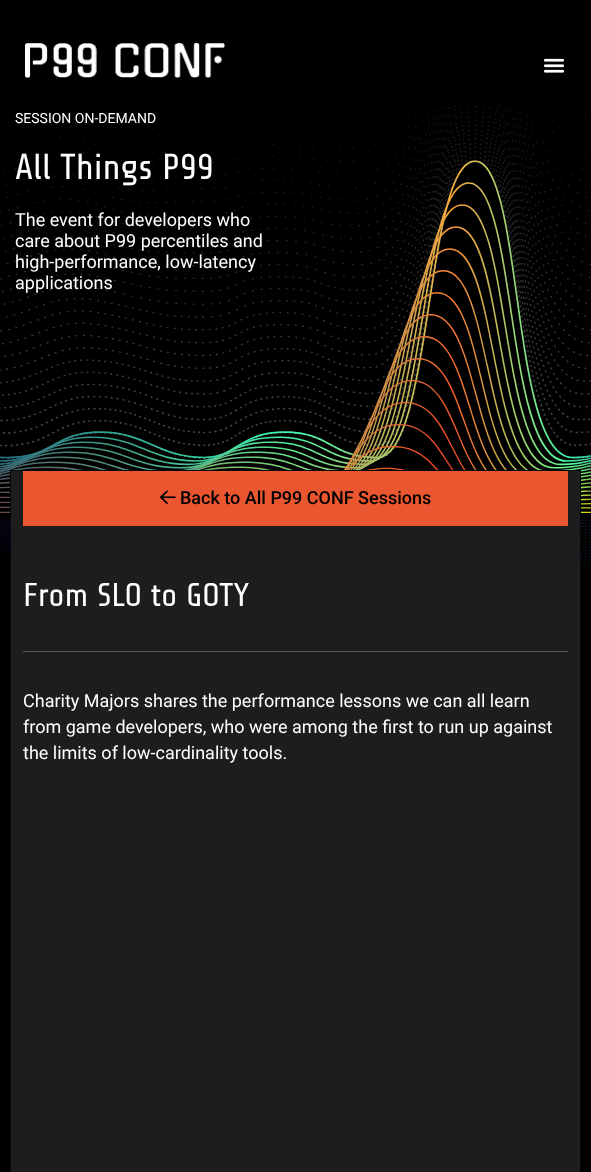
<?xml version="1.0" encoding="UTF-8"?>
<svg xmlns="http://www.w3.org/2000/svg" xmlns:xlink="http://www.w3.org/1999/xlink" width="591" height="1172">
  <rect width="100%" height="100%" fill="#000000" />
  <image x="25" y="43" width="200" height="35" xlink:href="image1.png" />
  <image x="543" y="58" width="22" height="15" xlink:href="image2.png" />
  <image x="0" y="106" width="591" height="407" xlink:href="image3.png" />
  <image x="0" y="520" width="591" height="50" xlink:href="image4.png" />
  <rect x="10.5" y="470.5" width="570" height="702" fill="#1d1d1d" stroke="#05080e" />
  <rect x="24" y="471" width="543" height="54" fill="#e9562f" />
  <rect x="567" y="471" width="1" height="55" fill="#e9562f" />
  <rect x="23" y="525" width="545" height="1" fill="#e9562f" />
  <rect x="23" y="471" width="1" height="55" fill="#e9562f" />
  <image x="160" y="490" width="16" height="14" xlink:href="image5.png" />
  <rect x="23" y="651" width="545" height="1" fill="#585858" />
  <text x="15" y="123" style="font-family: Roboto; font-size: 14px; fill: #ffffff">SESSION ON-DEMAND</text>
  <text x="15" y="179" style="font-family: Share Tech; font-size: 36px; fill: #ffffff">All Things P99</text>
  <text x="15" y="226" style="font-family: Roboto; font-size: 18px; fill: #ffffff">The event for developers who</text>
  <text x="15" y="247" style="font-family: Roboto; font-size: 18px; fill: #ffffff">care about P99 percentiles and</text>
  <text x="15" y="268" style="font-family: Roboto; font-size: 18px; fill: #ffffff">high-performance, low-latency</text>
  <text x="15" y="289" style="font-family: Roboto; font-size: 18px; fill: #ffffff">applications</text>
  <text x="180" y="504" style="font-family: Roboto; font-size: 18px; font-weight: 500; fill: #000000">Back to All P99 CONF Sessions</text>
  <text x="23" y="606" style="font-family: Share Tech; font-size: 33px; fill: #ffffff">From SLO to GOTY</text>
  <text x="23" y="707" style="font-family: Roboto; font-size: 18px; fill: #ffffff">Charity Majors shares the performance lessons we can all learn</text>
  <text x="23" y="733" style="font-family: Roboto; font-size: 18px; fill: #ffffff">from game developers, who were among the first to run up against</text>
  <text x="23" y="759" style="font-family: Roboto; font-size: 18px; fill: #ffffff">the limits of low-cardinality tools.</text>
</svg>
